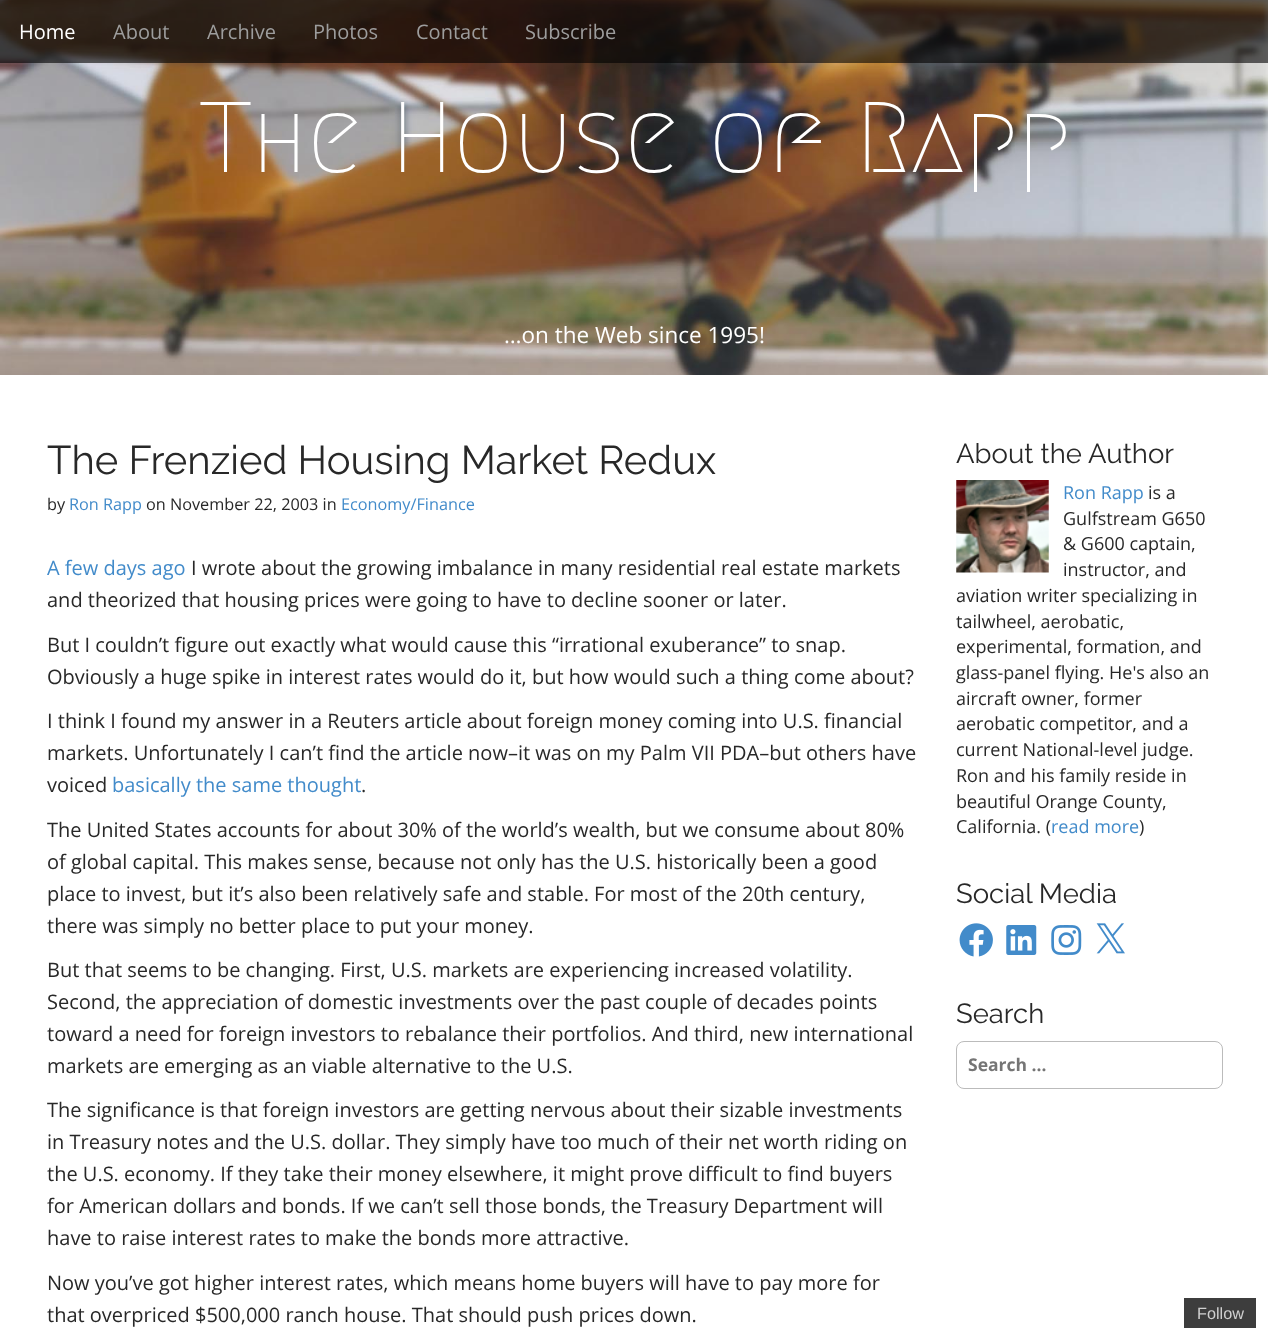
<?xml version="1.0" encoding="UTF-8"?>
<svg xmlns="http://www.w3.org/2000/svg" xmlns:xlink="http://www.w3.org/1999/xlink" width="1268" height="1328">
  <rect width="100%" height="100%" fill="#ffffff" />
  <image x="0" y="0" width="1268" height="375" xlink:href="image1.png" />
  <rect width="1268" height="63" fill="#000000" fill-opacity="0.6" />
  <image x="956" y="480" width="93" height="93" xlink:href="image2.png" />
  <image x="959" y="923" width="34" height="34" xlink:href="image3.png" />
  <image x="1006" y="925" width="31" height="30" xlink:href="image4.png" />
  <image x="1051" y="925" width="31" height="30" xlink:href="image5.png" />
  <image x="1096" y="923" width="29" height="31" xlink:href="image6.png" />
  <rect x="956.5" y="1041.5" width="266" height="47" rx="7.5" fill="none" stroke="#bbbbbb" />
  <rect x="1184" y="1298" width="72" height="30" fill="#3d3d3d" />
  <text x="19" y="39" style="font-family: Open Sans; font-size: 20px; fill: #ffffff">Home</text>
  <text x="113" y="39" style="font-family: Open Sans; font-size: 20px; fill: #9d9d9d">About</text>
  <text x="207" y="39" style="font-family: Open Sans; font-size: 20px; fill: #9d9d9d">Archive</text>
  <text x="313" y="39" style="font-family: Open Sans; font-size: 20px; fill: #9d9d9d">Photos</text>
  <text x="416" y="39" style="font-family: Open Sans; font-size: 20px; fill: #9d9d9d">Contact</text>
  <text x="525" y="39" style="font-family: Open Sans; font-size: 20px; fill: #9d9d9d">Subscribe</text>
  <text x="199" y="172" style="font-family: Megrim; font-size: 100px; font-weight: 500; fill: #ffffff">The House of Rapp</text>
  <text x="504" y="343" style="font-family: Open Sans; font-size: 22.5px; fill: #ffffff">…on the Web since 1995!</text>
  <text x="47" y="474" style="font-family: Raleway; font-size: 40px; font-weight: 100; fill: #282828">The Frenzied Housing Market Redux</text>
  <text x="47" y="510" style="font-family: Open Sans; font-size: 16.25px; fill: #282828">by</text>
  <text x="69" y="510" style="font-family: Open Sans; font-size: 16.25px; fill: #428bca">Ron Rapp</text>
  <text x="146" y="510" style="font-family: Open Sans; font-size: 16.25px; fill: #282828">on November 22, 2003 in</text>
  <text x="341" y="510" style="font-family: Open Sans; font-size: 16.25px; fill: #428bca">Economy/Finance</text>
  <text x="47" y="575" style="font-family: Open Sans; font-size: 20px; fill: #428bca">A few days ago</text>
  <text x="191" y="575" style="font-family: Open Sans; font-size: 20px; fill: #282828">I wrote about the growing imbalance in many residential real estate markets</text>
  <text x="47" y="607" style="font-family: Open Sans; font-size: 20px; fill: #282828">and theorized that housing prices were going to have to decline sooner or later.</text>
  <text x="47" y="652" style="font-family: Open Sans; font-size: 20px; fill: #282828">But I couldn’t figure out exactly what would cause this “irrational exuberance” to snap.</text>
  <text x="47" y="684" style="font-family: Open Sans; font-size: 20px; fill: #282828">Obviously a huge spike in interest rates would do it, but how would such a thing come about?</text>
  <text x="47" y="728" style="font-family: Open Sans; font-size: 20px; fill: #282828">I think I found my answer in a Reuters article about foreign money coming into U.S. financial</text>
  <text x="47" y="760" style="font-family: Open Sans; font-size: 20px; fill: #282828">markets. Unfortunately I can’t find the article now–it was on my Palm VII PDA–but others have</text>
  <text x="47" y="792" style="font-family: Open Sans; font-size: 20px; fill: #282828">voiced</text>
  <text x="112" y="792" style="font-family: Open Sans; font-size: 20px; fill: #428bca">basically the same thought</text>
  <text x="361" y="792" style="font-family: Open Sans; font-size: 20px; fill: #282828">.</text>
  <text x="47" y="837" style="font-family: Open Sans; font-size: 20px; fill: #282828">The United States accounts for about 30% of the world’s wealth, but we consume about 80%</text>
  <text x="47" y="869" style="font-family: Open Sans; font-size: 20px; fill: #282828">of global capital. This makes sense, because not only has the U.S. historically been a good</text>
  <text x="47" y="901" style="font-family: Open Sans; font-size: 20px; fill: #282828">place to invest, but it’s also been relatively safe and stable. For most of the 20th century,</text>
  <text x="47" y="933" style="font-family: Open Sans; font-size: 20px; fill: #282828">there was simply no better place to put your money.</text>
  <text x="47" y="977" style="font-family: Open Sans; font-size: 20px; fill: #282828">But that seems to be changing. First, U.S. markets are experiencing increased volatility.</text>
  <text x="47" y="1009" style="font-family: Open Sans; font-size: 20px; fill: #282828">Second, the appreciation of domestic investments over the past couple of decades points</text>
  <text x="47" y="1041" style="font-family: Open Sans; font-size: 20px; fill: #282828">toward a need for foreign investors to rebalance their portfolios. And third, new international</text>
  <text x="47" y="1073" style="font-family: Open Sans; font-size: 20px; fill: #282828">markets are emerging as an viable alternative to the U.S.</text>
  <text x="47" y="1117" style="font-family: Open Sans; font-size: 20px; fill: #282828">The significance is that foreign investors are getting nervous about their sizable investments</text>
  <text x="47" y="1149" style="font-family: Open Sans; font-size: 20px; fill: #282828">in Treasury notes and the U.S. dollar. They simply have too much of their net worth riding on</text>
  <text x="47" y="1181" style="font-family: Open Sans; font-size: 20px; fill: #282828">the U.S. economy. If they take their money elsewhere, it might prove difficult to find buyers</text>
  <text x="47" y="1213" style="font-family: Open Sans; font-size: 20px; fill: #282828">for American dollars and bonds. If we can’t sell those bonds, the Treasury Department will</text>
  <text x="47" y="1245" style="font-family: Open Sans; font-size: 20px; fill: #282828">have to raise interest rates to make the bonds more attractive.</text>
  <text x="47" y="1290" style="font-family: Open Sans; font-size: 20px; fill: #282828">Now you’ve got higher interest rates, which means home buyers will have to pay more for</text>
  <text x="47" y="1322" style="font-family: Open Sans; font-size: 20px; fill: #282828">that overpriced $500,000 ranch house. That should push prices down.</text>
  <text x="956" y="463" style="font-family: Raleway; font-size: 27.5px; font-weight: 100; fill: #282828">About the Author</text>
  <text x="1063" y="499" style="font-family: Open Sans; font-size: 18px; fill: #428bca">Ron Rapp</text>
  <text x="1148" y="499" style="font-family: Open Sans; font-size: 18px; fill: #282828">is a</text>
  <text x="1063" y="525" style="font-family: Open Sans; font-size: 18px; fill: #282828">Gulfstream G650</text>
  <text x="1063" y="550" style="font-family: Open Sans; font-size: 18px; fill: #282828">&amp; G600 captain,</text>
  <text x="1063" y="576" style="font-family: Open Sans; font-size: 18px; fill: #282828">instructor, and</text>
  <text x="956" y="602" style="font-family: Open Sans; font-size: 18px; fill: #282828">aviation writer specializing in</text>
  <text x="956" y="628" style="font-family: Open Sans; font-size: 18px; fill: #282828">tailwheel, aerobatic,</text>
  <text x="956" y="653" style="font-family: Open Sans; font-size: 18px; fill: #282828">experimental, formation, and</text>
  <text x="956" y="679" style="font-family: Open Sans; font-size: 18px; fill: #282828">glass-panel flying. He's also an</text>
  <text x="956" y="705" style="font-family: Open Sans; font-size: 18px; fill: #282828">aircraft owner, former</text>
  <text x="956" y="730" style="font-family: Open Sans; font-size: 18px; fill: #282828">aerobatic competitor, and a</text>
  <text x="956" y="756" style="font-family: Open Sans; font-size: 18px; fill: #282828">current National-level judge.</text>
  <text x="956" y="782" style="font-family: Open Sans; font-size: 18px; fill: #282828">Ron and his family reside in</text>
  <text x="956" y="808" style="font-family: Open Sans; font-size: 18px; fill: #282828">beautiful Orange County,</text>
  <text x="956" y="833" style="font-family: Open Sans; font-size: 18px; fill: #282828">California. (</text>
  <text x="1051" y="833" style="font-family: Open Sans; font-size: 18px; fill: #428bca">read more</text>
  <text x="1139" y="833" style="font-family: Open Sans; font-size: 18px; fill: #282828">)</text>
  <text x="956" y="903" style="font-family: Raleway; font-size: 27.5px; font-weight: 100; fill: #282828">Social Media</text>
  <text x="956" y="1023" style="font-family: Raleway; font-size: 27.5px; font-weight: 100; fill: #282828">Search</text>
  <text x="968" y="1071" style="font-family: Open Sans; font-size: 17.5px; font-weight: bold; fill: #757575">Search …</text>
  <text x="1197" y="1319" style="font-family: Liberation Sans; font-size: 16.25px; fill: #cfcfcf">Follow</text>
</svg>
